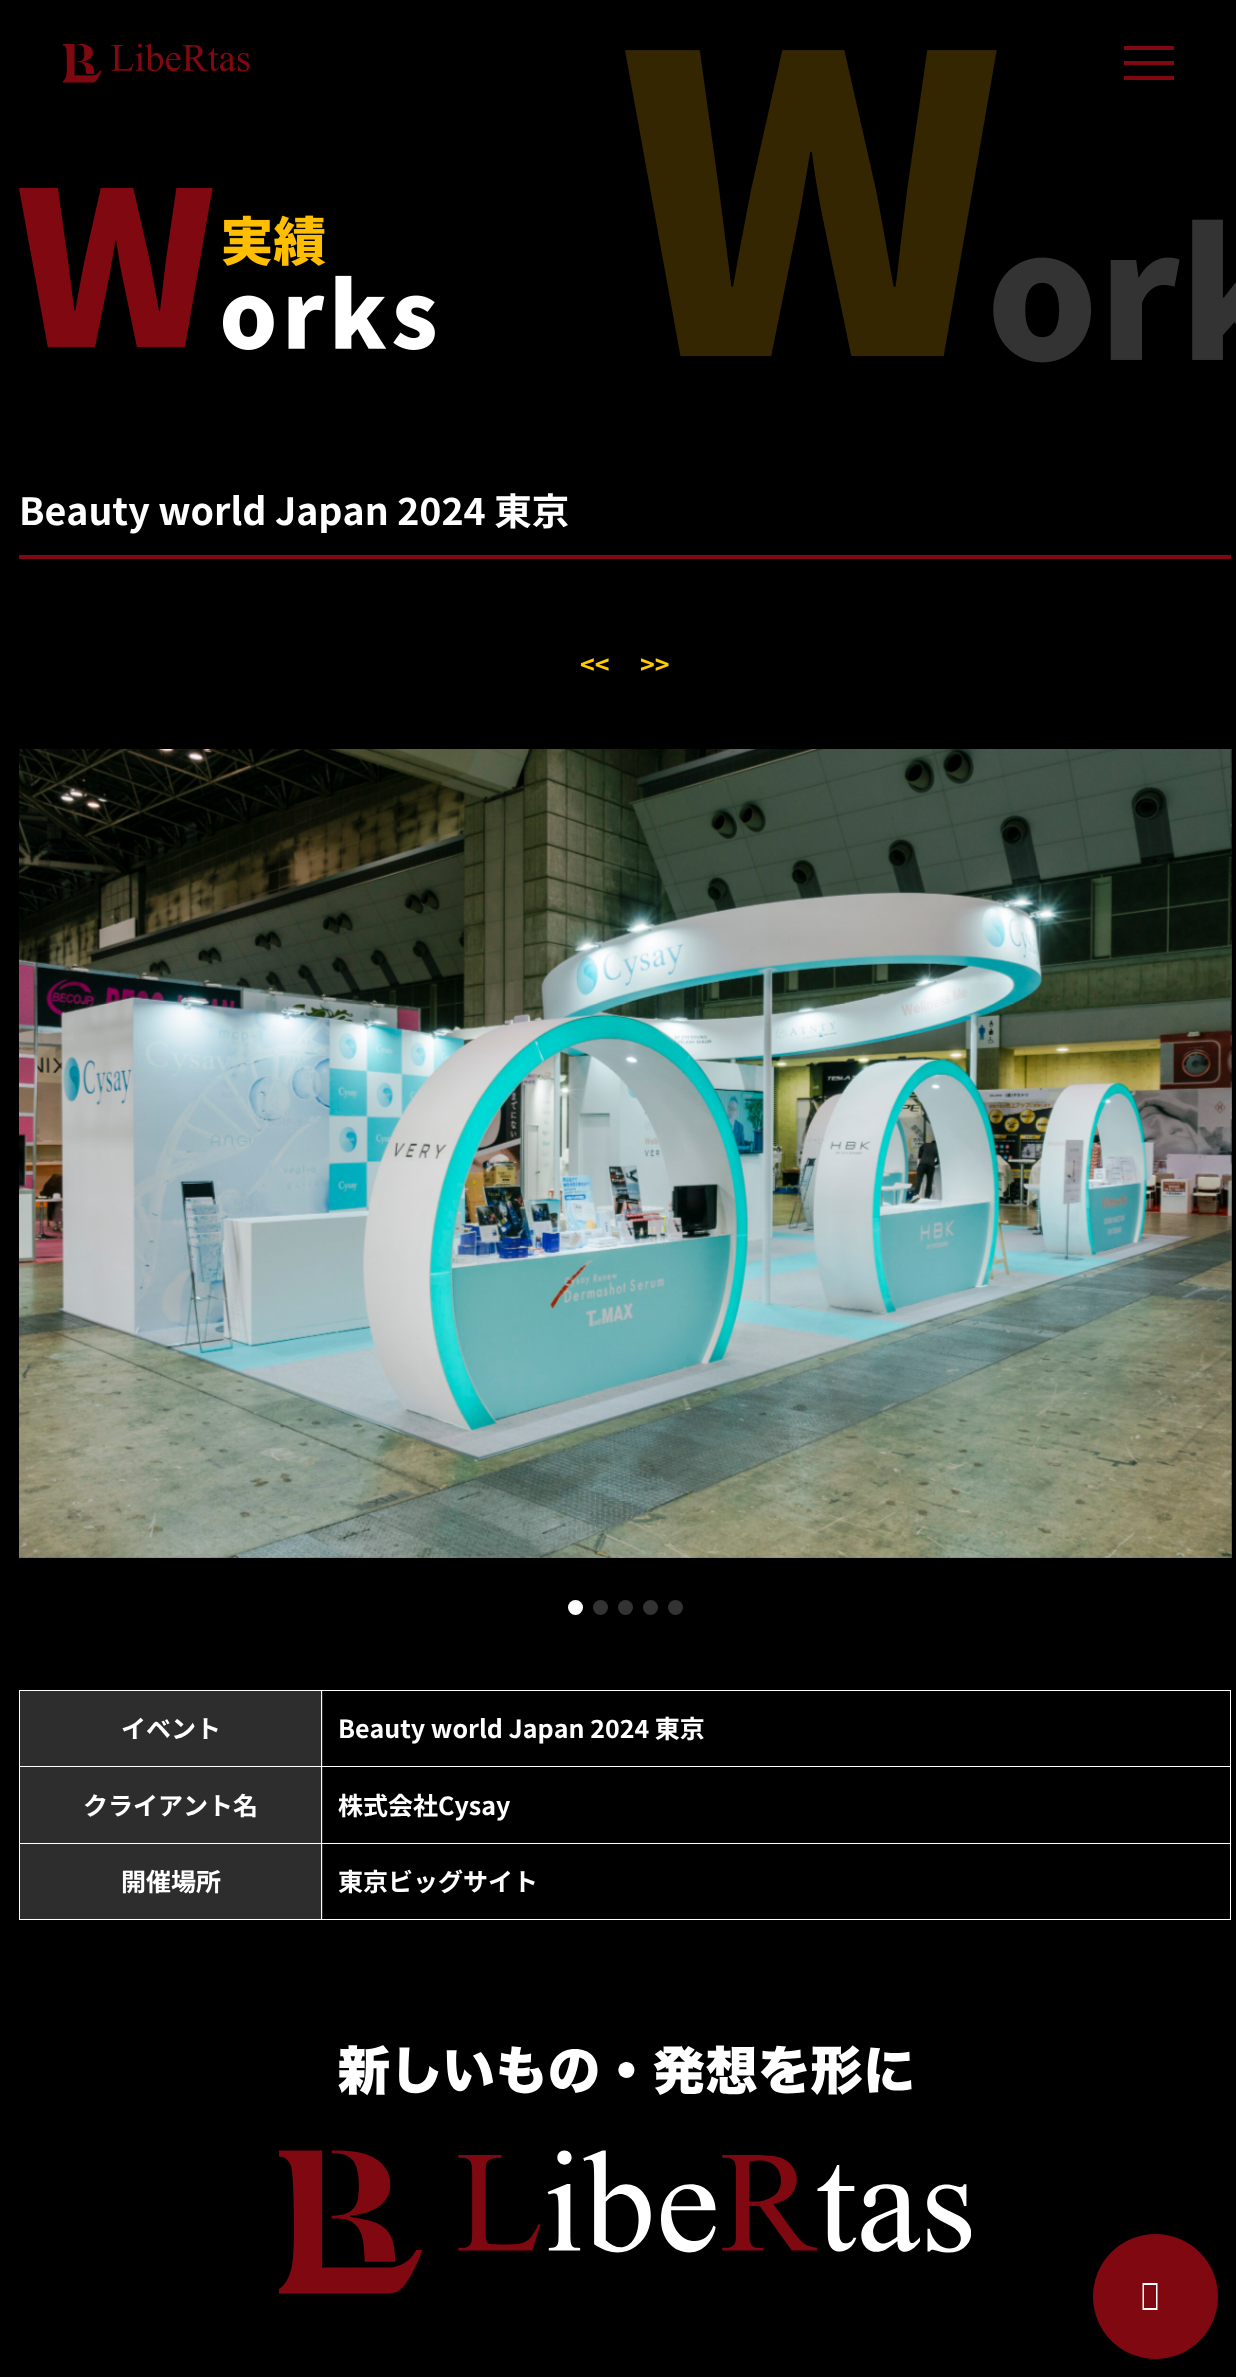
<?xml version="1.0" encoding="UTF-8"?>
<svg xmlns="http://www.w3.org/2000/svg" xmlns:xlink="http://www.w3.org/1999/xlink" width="1236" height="2377">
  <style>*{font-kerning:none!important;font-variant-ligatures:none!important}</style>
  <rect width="100%" height="100%" fill="#000000" />
  <image x="63" y="44" width="187" height="39" xlink:href="image1.png" />
  <rect x="1124" y="46" width="50" height="4" fill="#800810" />
  <image x="625" y="50" width="611" height="313" xlink:href="image3.png" />
  <rect x="1124" y="61" width="50" height="4" fill="#800810" />
  <rect x="1124" y="76" width="50" height="4" fill="#800810" />
  <image x="19" y="188" width="416" height="162" xlink:href="image2.png" />
  <rect x="19" y="555" width="1212" height="4" fill="#800810" />
  <image x="19" y="749" width="1213" height="809" xlink:href="image4.png" />
  <image x="19" y="749" width="1213" height="809" xlink:href="image5.png" />
  <circle cx="575.5" cy="1607.5" r="7.5" fill="#ffffff" />
  <circle cx="600.5" cy="1607.5" r="7.5" fill="#333333" />
  <circle cx="625.5" cy="1607.5" r="7.5" fill="#333333" />
  <circle cx="650.5" cy="1607.5" r="7.5" fill="#333333" />
  <circle cx="675.5" cy="1607.5" r="7.5" fill="#333333" />
  <rect x="20" y="1691" width="303" height="75" fill="#2d2d2d" />
  <rect x="321" y="1690" width="910" height="1" fill="#ffffff" />
  <rect x="20" y="1767" width="303" height="76" fill="#2d2d2d" />
  <rect x="321" y="1766" width="910" height="1" fill="#ffffff" />
  <rect x="321" y="1843" width="910" height="1" fill="#ffffff" />
  <rect x="20" y="1844" width="303" height="75" fill="#2d2d2d" />
  <rect x="1230" y="1843" width="1" height="77" fill="#ffffff" />
  <rect x="321" y="1919" width="910" height="1" fill="#ffffff" />
  <rect x="321" y="1843" width="1" height="77" fill="#ffffff" />
  <rect x="19" y="1843" width="304" height="1" fill="#ffffff" />
  <rect x="321" y="1766" width="1" height="78" fill="#ffffff" />
  <rect x="19" y="1766" width="304" height="1" fill="#ffffff" />
  <rect x="321" y="1690" width="1" height="78" fill="#ffffff" />
  <rect x="19" y="1690" width="304" height="1" fill="#ffffff" />
  <rect x="19" y="1919" width="304" height="1" fill="#ffffff" />
  <rect x="19" y="1843" width="1" height="77" fill="#ffffff" />
  <rect x="19" y="1766" width="1" height="78" fill="#ffffff" />
  <rect x="19" y="1690" width="1" height="78" fill="#ffffff" />
  <rect x="1230" y="1766" width="1" height="78" fill="#ffffff" />
  <rect x="1230" y="1690" width="1" height="78" fill="#ffffff" />
  <image x="279" y="2045" width="692" height="249" xlink:href="image6.png" />
  <circle cx="1155.5" cy="2296.5" r="62.5" fill="#800810" />
  <path d="M 1142.5 2310 v -27 h 15 v 27 z m 1.5 -2 h 12 v -23 h -12 z" fill="#ffffff" />
  <text x="19" y="525" style="font-family: Noto Sans JP; font-size: 37.5px; font-weight: bold; fill: #ffffff">Beauty world Japan 2024 東京</text>
  <text x="580" y="674" style="font-family: Noto Sans JP; font-size: 25px; font-weight: bold; fill: #ffcc00">&lt;&lt;</text>
  <text x="640" y="674" style="font-family: Noto Sans JP; font-size: 25px; font-weight: bold; fill: #ffcc00">&gt;&gt;</text>
  <text x="121" y="1738" style="font-family: Noto Sans JP; font-size: 25px; font-weight: bold; fill: #ffffff">イベント</text>
  <text x="338" y="1738" style="font-family: Noto Sans JP; font-size: 25px; font-weight: bold; fill: #ffffff">Beauty world Japan 2024 東京</text>
  <text x="83" y="1815" style="font-family: Noto Sans JP; font-size: 25px; font-weight: bold; fill: #ffffff">クライアント名</text>
  <text x="338" y="1815" style="font-family: Noto Sans JP; font-size: 25px; font-weight: bold; fill: #ffffff">株式会社Cysay</text>
  <text x="121" y="1891" style="font-family: Noto Sans JP; font-size: 25px; font-weight: bold; fill: #ffffff">開催場所</text>
  <text x="338" y="1891" style="font-family: Noto Sans JP; font-size: 25px; font-weight: bold; fill: #ffffff">東京ビッグサイト</text>
</svg>
